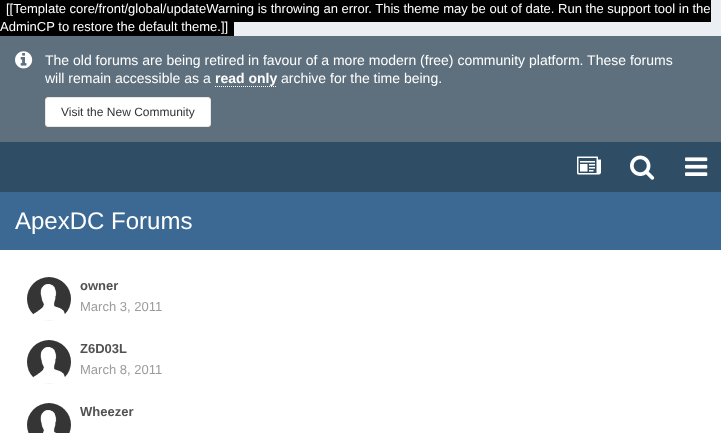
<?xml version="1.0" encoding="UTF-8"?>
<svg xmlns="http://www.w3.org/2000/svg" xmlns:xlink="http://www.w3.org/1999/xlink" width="721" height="433">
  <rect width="100%" height="100%" fill="#ebeef2" />
  <rect width="711" height="22" fill="#000000" />
  <rect y="22" width="234" height="14" fill="#000000" />
  <rect y="36" width="721" height="106" fill="#5e707d" />
  <image x="15" y="51" width="18" height="18" xlink:href="image1.png" />
  <path d="M 215 86.5 h 62" fill="none" stroke="#ffffff" stroke-dasharray="1 1" />
  <rect x="45.5" y="97.5" width="165" height="29" rx="2.5" fill="#ffffff" stroke="#e8e8e8" />
  <rect y="142" width="721" height="50" fill="#304d66" />
  <image x="577" y="156" width="24" height="19" xlink:href="image2.png" />
  <image x="630" y="155" width="25" height="25" xlink:href="image3.png" />
  <image x="685" y="157" width="23" height="19" xlink:href="image4.png" />
  <rect y="192" width="721" height="58" fill="#3c6994" />
  <rect y="250" width="721" height="183" fill="#ffffff" />
  <image x="27" y="277" width="44" height="44" xlink:href="image5.png" />
  <image x="27" y="340" width="44" height="44" xlink:href="image6.png" />
  <image x="27" y="403" width="44" height="30" xlink:href="image7.png" />
  <text x="6" y="13" style="font-family: Liberation Sans; font-size: 13px; fill: #ffffff">[[Template core/front/global/updateWarning is throwing an error. This theme may be out of date. Run the support tool in the</text>
  <text x="0" y="31" style="font-family: Liberation Sans; font-size: 13px; fill: #ffffff">AdminCP to restore the default theme.]]</text>
  <text x="45" y="65" style="font-family: Liberation Sans; font-size: 14px; fill: #ffffff">The old forums are being retired in favour of a more modern (free) community platform. These forums</text>
  <text x="45" y="83" style="font-family: Liberation Sans; font-size: 14px; fill: #ffffff">will remain accessible as a</text>
  <text x="215" y="83" style="font-family: Liberation Sans; font-size: 14px; font-weight: bold; fill: #ffffff">read only</text>
  <text x="281" y="83" style="font-family: Liberation Sans; font-size: 14px; fill: #ffffff">archive for the time being.</text>
  <text x="61" y="116" style="font-family: Liberation Sans; font-size: 12px; fill: #333333">Visit the New Community</text>
  <text x="15" y="229" style="font-family: Liberation Sans; font-size: 24px; fill: #ffffff">ApexDC Forums</text>
  <text x="80" y="290" style="font-family: Liberation Sans; font-size: 13px; font-weight: bold; fill: #525252">owner</text>
  <text x="80" y="311" style="font-family: Liberation Sans; font-size: 13px; fill: #9c9c9c">March 3, 2011</text>
  <text x="80" y="353" style="font-family: Liberation Sans; font-size: 13px; font-weight: bold; fill: #525252">Z6D03L</text>
  <text x="80" y="374" style="font-family: Liberation Sans; font-size: 13px; fill: #9c9c9c">March 8, 2011</text>
  <text x="80" y="416" style="font-family: Liberation Sans; font-size: 13px; font-weight: bold; fill: #525252">Wheezer</text>
</svg>
